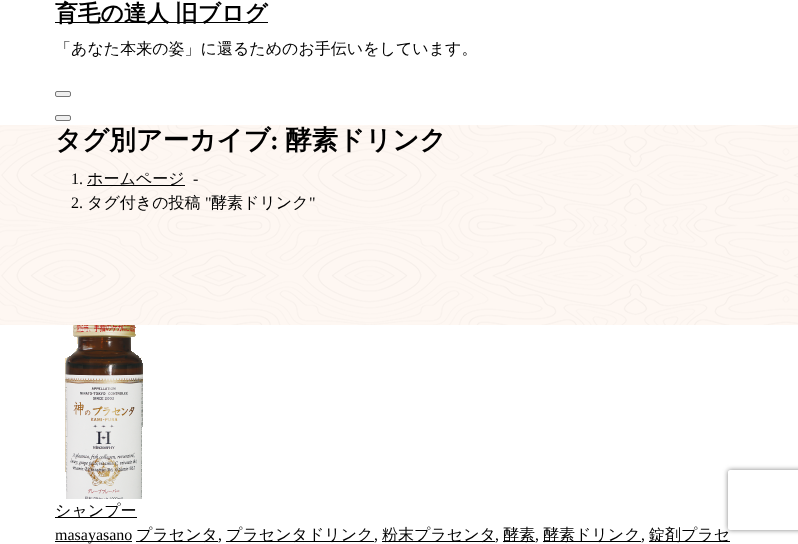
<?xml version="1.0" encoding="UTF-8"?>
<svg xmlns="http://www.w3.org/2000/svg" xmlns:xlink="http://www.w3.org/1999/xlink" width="798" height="544">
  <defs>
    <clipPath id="clip1"><path d="M 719 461 h 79 v 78 h -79 z m 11 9 h 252 c 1 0 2 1 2 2 v 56 c 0 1 -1 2 -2 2 h -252 c -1 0 -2 -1 -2 -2 v -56 c 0 -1 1 -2 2 -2 z" clip-rule="evenodd" /></clipPath>
  </defs>
  <rect width="100%" height="100%" fill="#ffffff" />
  <rect x="55" y="22" width="213" height="1" fill="#000000" />
  <rect x="55.5" y="91.5" width="15" height="5" rx="1.5" fill="#efefef" stroke="#767676" />
  <rect x="55.5" y="115.5" width="15" height="5" rx="1.5" fill="#efefef" stroke="#767676" />
  <image x="0" y="125" width="798" height="200" xlink:href="image1.png" />
  <rect x="87" y="185" width="98" height="1" fill="#000000" />
  <image x="65" y="325" width="78" height="174" xlink:href="image2.png" />
  <rect x="55" y="517" width="82" height="1" fill="#000000" />
  <rect x="55" y="541" width="77" height="1" fill="#000000" />
  <rect x="136" y="541" width="82" height="1" fill="#000000" />
  <rect x="226" y="541" width="148" height="1" fill="#000000" />
  <rect x="382" y="541" width="113" height="1" fill="#000000" />
  <rect x="503" y="541" width="32" height="1" fill="#000000" />
  <rect x="543" y="541" width="98" height="1" fill="#000000" />
  <rect x="649" y="541" width="81" height="1" fill="#000000" />
  <g clip-path="url(#clip1)">
    <rect x="728" y="470" width="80" height="60" rx="2" fill="#808080" filter="blur(2.5px)" />
  </g>
  <text x="55" y="21" word-spacing="-1" style="font-family: WenQuanYi Zen Hei; font-size: 22.75px; font-weight: bold; fill: #000000">育毛の達人 旧ブログ</text>
  <text x="55" y="54" style="font-family: WenQuanYi Zen Hei; font-size: 16px; font-weight: 500; fill: #000000">「あなた本来の姿」に還るためのお手伝いをしています。</text>
  <text x="55" y="149" style="font-family: WenQuanYi Zen Hei; font-size: 26.5px; font-weight: bold; fill: #000000">タグ別アーカイブ</text>
  <text x="270" y="149" style="font-family: Liberation Serif; font-size: 26.5px; font-weight: bold; fill: #000000">:</text>
  <text x="285" y="149" style="font-family: WenQuanYi Zen Hei; font-size: 26.5px; font-weight: bold; fill: #000000">酵素ドリンク</text>
  <text x="71" y="184" style="font-family: Liberation Serif; font-size: 16px; fill: #000000">1.</text>
  <text x="87" y="184" style="font-family: WenQuanYi Zen Hei; font-size: 16px; font-weight: 500; fill: #000000">ホームページ</text>
  <text x="193" y="184" style="font-family: Liberation Serif; font-size: 16px; fill: #000000">-</text>
  <text x="71" y="208" style="font-family: Liberation Serif; font-size: 16px; fill: #000000">2.</text>
  <text x="87" y="208" style="font-family: WenQuanYi Zen Hei; font-size: 16px; font-weight: 500; fill: #000000">タグ付きの投稿</text>
  <text x="205" y="208" style="font-family: Liberation Serif; font-size: 16px; fill: #000000">"</text>
  <text x="211" y="208" style="font-family: WenQuanYi Zen Hei; font-size: 16px; font-weight: 500; fill: #000000">酵素ドリンク</text>
  <text x="309" y="208" style="font-family: Liberation Serif; font-size: 16px; fill: #000000">"</text>
  <text x="55" y="516" style="font-family: WenQuanYi Zen Hei; font-size: 16px; font-weight: 500; fill: #000000">シャンプー</text>
  <text x="55" y="540" style="font-family: Liberation Serif; font-size: 16px; fill: #000000">masayasano</text>
  <text x="136" y="540" style="font-family: WenQuanYi Zen Hei; font-size: 16px; font-weight: 500; fill: #000000">プラセンタ</text>
  <text x="218" y="540" style="font-family: Liberation Serif; font-size: 16px; fill: #000000">,</text>
  <text x="226" y="540" style="font-family: WenQuanYi Zen Hei; font-size: 16px; font-weight: 500; fill: #000000">プラセンタドリンク</text>
  <text x="374" y="540" style="font-family: Liberation Serif; font-size: 16px; fill: #000000">,</text>
  <text x="382" y="540" style="font-family: WenQuanYi Zen Hei; font-size: 16px; font-weight: 500; fill: #000000">粉末プラセンタ</text>
  <text x="495" y="540" style="font-family: Liberation Serif; font-size: 16px; fill: #000000">,</text>
  <text x="503" y="540" style="font-family: WenQuanYi Zen Hei; font-size: 16px; font-weight: 500; fill: #000000">酵素</text>
  <text x="535" y="540" style="font-family: Liberation Serif; font-size: 16px; fill: #000000">,</text>
  <text x="543" y="540" style="font-family: WenQuanYi Zen Hei; font-size: 16px; font-weight: 500; fill: #000000">酵素ドリンク</text>
  <text x="641" y="540" style="font-family: Liberation Serif; font-size: 16px; fill: #000000">,</text>
  <text x="649" y="540" style="font-family: WenQuanYi Zen Hei; font-size: 16px; font-weight: 500; fill: #000000">錠剤プラセ</text>
</svg>
